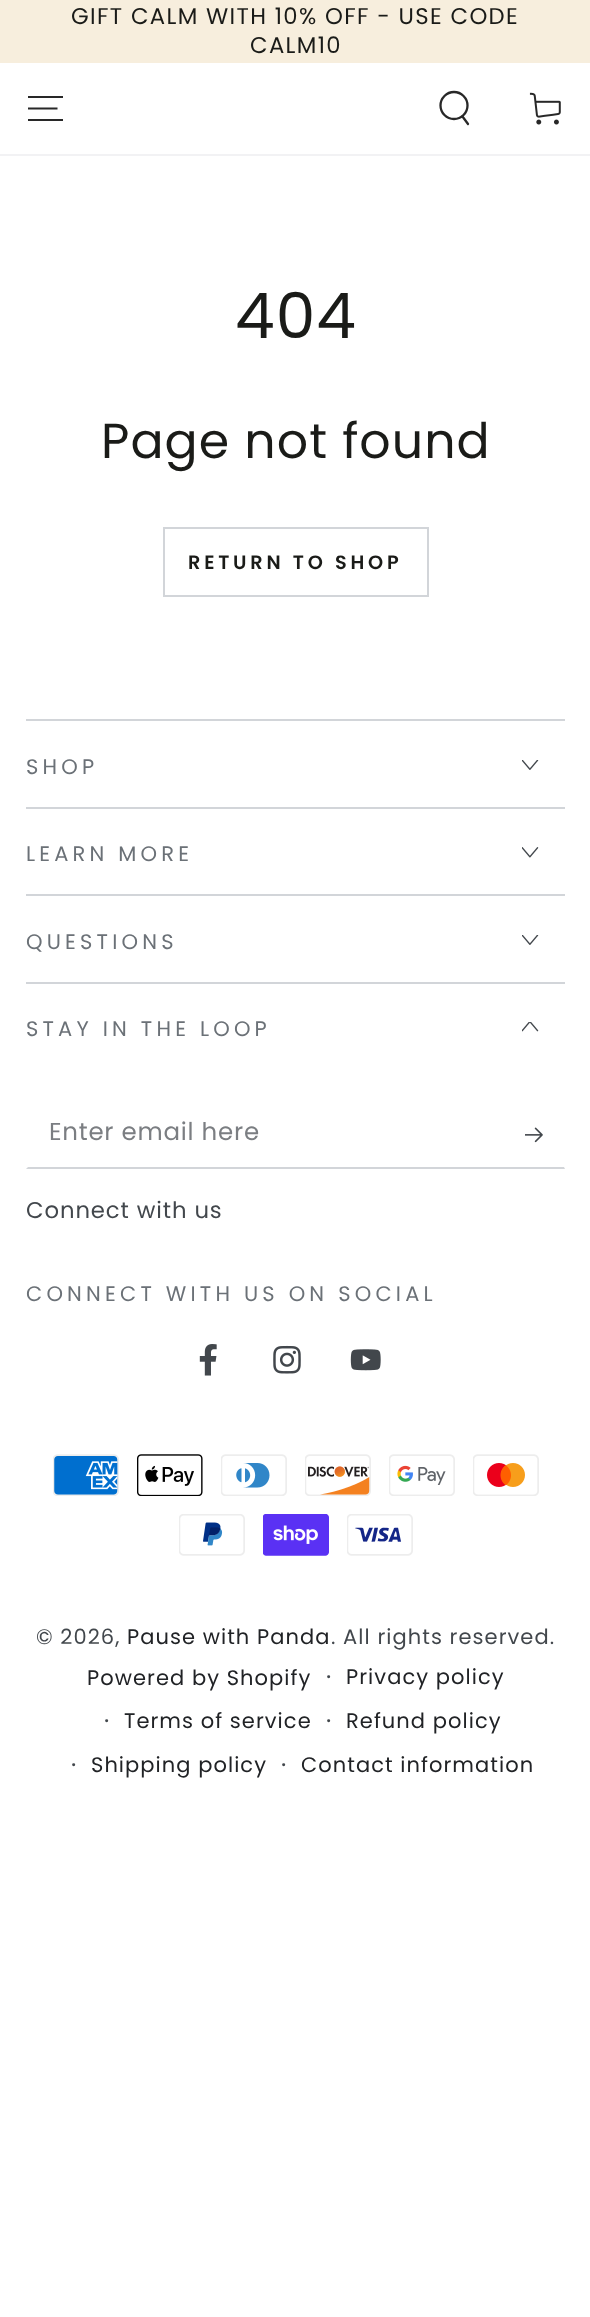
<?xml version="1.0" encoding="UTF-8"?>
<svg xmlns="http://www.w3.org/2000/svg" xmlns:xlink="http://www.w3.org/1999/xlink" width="590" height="2317">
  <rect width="100%" height="100%" fill="#ffffff" />
  <rect width="590" height="63" fill="#f7eedd" />
  <path d="M 0 154 v 2 h 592 v -91 v 89 z" fill="#f2f2f4" />
  <path d="M 28 120 h 35 m -35 -11.5 h 29.5 m -29.5 -11.5 h 35" fill="none" stroke="#282828" stroke-width="2" />
  <circle cx="454" cy="105.5" r="13.5" fill="none" stroke="#282828" stroke-width="2.3" />
  <path d="M 462.5 116.5 l 5.5 7.5" fill="none" stroke="#282828" stroke-width="2.3" stroke-linecap="round" />
  <image x="529" y="92" width="32" height="33" xlink:href="image1.png" />
  <rect x="164" y="528" width="264" height="68" fill="none" stroke="#d2d5d9" stroke-width="2" />
  <rect x="26" y="719" width="539" height="2" fill="#d2d5d9" />
  <rect x="26" y="807" width="539" height="2" fill="#d2d5d9" />
  <image x="522" y="760" width="17" height="10" xlink:href="image2.png" />
  <rect x="26" y="894" width="539" height="2" fill="#d2d5d9" />
  <image x="522" y="847" width="17" height="11" xlink:href="image3.png" />
  <rect x="26" y="982" width="539" height="2" fill="#d2d5d9" />
  <image x="522" y="935" width="17" height="10" xlink:href="image2.png" />
  <image x="522" y="1022" width="17" height="10" xlink:href="image4.png" />
  <path d="M 565 1169 h -539 l 2 -2 h 536 z" fill="#d2d5d9" />
  <image x="525" y="1127" width="18" height="16" xlink:href="image5.png" />
  <image x="199" y="1344" width="18" height="32" xlink:href="image6.png" />
  <image x="273" y="1345" width="28" height="29" xlink:href="image7.png" />
  <image x="350" y="1349" width="31" height="22" xlink:href="image8.png" />
  <image x="53" y="1454" width="66" height="42" xlink:href="image9.png" />
  <image x="137" y="1454" width="66" height="42" xlink:href="image10.png" />
  <image x="221" y="1454" width="66" height="42" xlink:href="image11.png" />
  <image x="305" y="1454" width="66" height="42" xlink:href="image12.png" />
  <image x="389" y="1454" width="66" height="42" xlink:href="image13.png" />
  <image x="473" y="1454" width="66" height="42" xlink:href="image14.png" />
  <image x="179" y="1514" width="66" height="42" xlink:href="image15.png" />
  <image x="263" y="1514" width="66" height="42" xlink:href="image16.png" />
  <image x="347" y="1514" width="66" height="42" xlink:href="image17.png" />
  <text x="71" y="24" style="font-family: Poppins; font-size: 22.75px; letter-spacing: 1.35px; fill: #1a1b18">GIFT CALM WITH 10% OFF - USE CODE</text>
  <text x="250" y="53" style="font-family: Poppins; font-size: 22.75px; letter-spacing: 1.35px; fill: #1a1b18">CALM10</text>
  <text x="235" y="338" style="font-family: Poppins; font-size: 63px; letter-spacing: 1.05px; fill: #1a1b18">404</text>
  <text x="101" y="458" style="font-family: Poppins; font-size: 49px; letter-spacing: 1.05px; fill: #1a1b18">Page not found</text>
  <text x="188" y="569" style="font-family: Poppins; font-size: 19.25px; font-weight: 600; letter-spacing: 3.8px; fill: #1a1b18">RETURN TO SHOP</text>
  <text x="26" y="774" style="font-family: Poppins; font-size: 21px; letter-spacing: 4.2px; fill: #6b7177">SHOP</text>
  <text x="26" y="861" style="font-family: Poppins; font-size: 21px; letter-spacing: 4.2px; fill: #6b7177">LEARN MORE</text>
  <text x="26" y="949" style="font-family: Poppins; font-size: 21px; letter-spacing: 4.2px; fill: #6b7177">QUESTIONS</text>
  <text x="26" y="1036" style="font-family: Poppins; font-size: 21px; letter-spacing: 4.2px; fill: #6b7177">STAY IN THE LOOP</text>
  <text x="49" y="1140" style="font-family: Poppins; font-size: 24.5px; letter-spacing: 0.75px; fill: #7b7e82">Enter email here</text>
  <text x="26" y="1218" style="font-family: Poppins; font-size: 22.75px; letter-spacing: 0.9px; fill: #42474c">Connect with us</text>
  <text x="26" y="1301" style="font-family: Poppins; font-size: 21px; letter-spacing: 4.2px; fill: #6b7177">CONNECT WITH US ON SOCIAL</text>
  <text x="36" y="1644" style="font-family: Poppins; font-size: 21px; letter-spacing: 1.05px; fill: #42474c">© 2026,</text>
  <text x="127" y="1644" style="font-family: Poppins; font-size: 21px; letter-spacing: 1.05px; fill: #212326">Pause with Panda</text>
  <text x="331" y="1644" style="font-family: Poppins; font-size: 21px; letter-spacing: 1.05px; fill: #42474c">. All rights reserved.</text>
  <text x="87" y="1685" style="font-family: Poppins; font-size: 21px; letter-spacing: 1.05px; fill: #212326">Powered by Shopify</text>
  <text x="326" y="1685" style="font-family: Poppins; font-size: 24.5px; letter-spacing: 1.05px; fill: #42474c">·</text>
  <text x="346" y="1684" style="font-family: Poppins; font-size: 21px; letter-spacing: 1.05px; fill: #212326">Privacy policy</text>
  <text x="104" y="1729" style="font-family: Poppins; font-size: 24.5px; letter-spacing: 1.05px; fill: #42474c">·</text>
  <text x="124" y="1728" style="font-family: Poppins; font-size: 21px; letter-spacing: 1.05px; fill: #212326">Terms of service</text>
  <text x="326" y="1729" style="font-family: Poppins; font-size: 24.5px; letter-spacing: 1.05px; fill: #42474c">·</text>
  <text x="346" y="1728" style="font-family: Poppins; font-size: 21px; letter-spacing: 1.05px; fill: #212326">Refund policy</text>
  <text x="71" y="1773" style="font-family: Poppins; font-size: 24.5px; letter-spacing: 1.05px; fill: #42474c">·</text>
  <text x="91" y="1772" style="font-family: Poppins; font-size: 21px; letter-spacing: 1.05px; fill: #212326">Shipping policy</text>
  <text x="281" y="1773" style="font-family: Poppins; font-size: 24.5px; letter-spacing: 1.05px; fill: #42474c">·</text>
  <text x="301" y="1772" style="font-family: Poppins; font-size: 21px; letter-spacing: 1.05px; fill: #212326">Contact information</text>
</svg>
